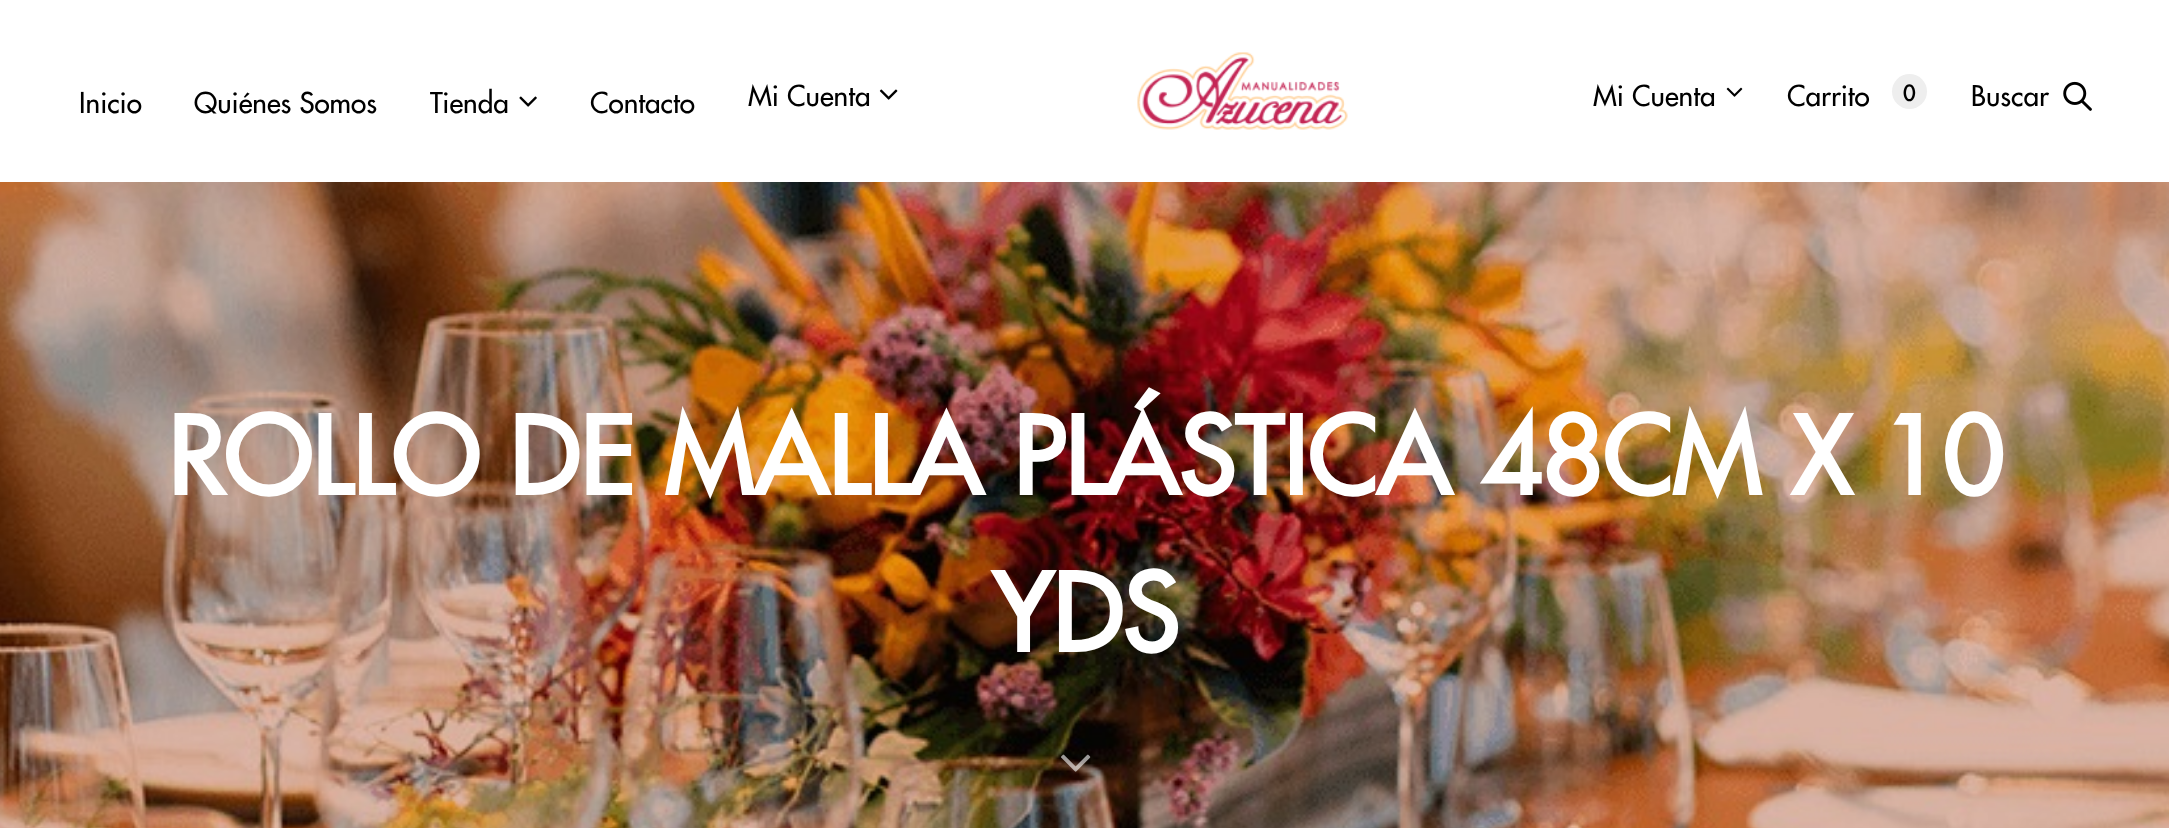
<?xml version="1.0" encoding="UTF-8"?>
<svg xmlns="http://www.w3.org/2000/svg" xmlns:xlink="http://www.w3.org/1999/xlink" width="2169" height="828">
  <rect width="100%" height="100%" fill="#ffffff" />
  <image x="519" y="96" width="18" height="11" xlink:href="image1.png" />
  <image x="879" y="89" width="19" height="11" xlink:href="image2.png" />
  <image x="1137" y="52" width="211" height="78" xlink:href="image3.png" />
  <image x="1726" y="87" width="17" height="10" xlink:href="image4.png" />
  <circle cx="1909.5" cy="91.5" r="17.5" fill="#eeeeee" />
  <image x="2063" y="81" width="29" height="30" xlink:href="image5.png" />
  <image x="0" y="182" width="2169" height="646" xlink:href="image6.png" />
  <image x="1061" y="754" width="30" height="18" xlink:href="image7.png" />
  <text x="79" y="113" style="font-family: Futura; font-size: 28px; font-weight: 500; fill: #000000">Inicio</text>
  <text x="194" y="113" style="font-family: Futura; font-size: 28px; font-weight: 500; fill: #000000">Quiénes Somos</text>
  <text x="430" y="113" style="font-family: Futura; font-size: 28px; font-weight: 500; fill: #000000">Tienda</text>
  <text x="590" y="113" style="font-family: Futura; font-size: 28px; font-weight: 500; fill: #000000">Contacto</text>
  <text x="748" y="106" style="font-family: Futura; font-size: 28px; font-weight: 500; fill: #000000">Mi Cuenta</text>
  <text x="1593" y="106" style="font-family: Futura; font-size: 28px; font-weight: 500; fill: #000000">Mi Cuenta</text>
  <text x="1787" y="106" style="font-family: Futura; font-size: 28px; font-weight: 500; fill: #000000">Carrito</text>
  <text x="1903" y="101" style="font-family: Futura; font-size: 21px; font-weight: bold; fill: #000000">0</text>
  <text x="1971" y="106" style="font-family: Futura; font-size: 28px; font-weight: 500; fill: #000000">Buscar</text>
  <text x="167" y="495" style="font-family: Futura; font-size: 105px; font-weight: bold; fill: #ffffff">ROLLO DE MALLA PLÁSTICA 48CM X 10</text>
  <text x="992" y="652" style="font-family: Futura; font-size: 105px; font-weight: bold; fill: #ffffff">YDS</text>
</svg>
